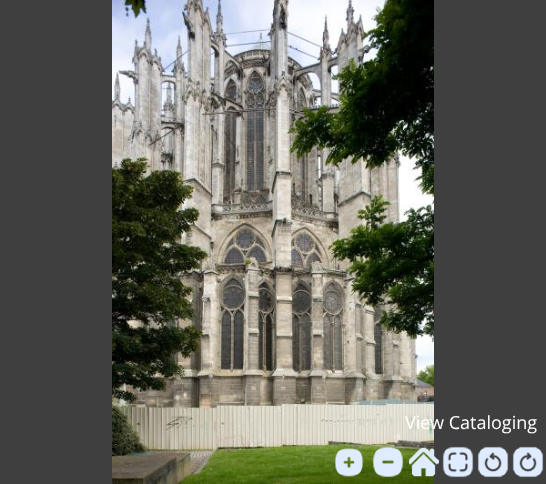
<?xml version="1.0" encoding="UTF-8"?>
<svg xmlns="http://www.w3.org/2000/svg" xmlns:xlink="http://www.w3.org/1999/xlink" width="546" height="484">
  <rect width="100%" height="100%" fill="#3f3f3f" />
  <image x="112" y="0" width="322" height="484" xlink:href="image1.png" />
  <image x="335" y="448" width="28" height="29" xlink:href="image2.png" />
  <image x="335" y="448" width="28" height="29" xlink:href="image3.png" />
  <image x="372" y="446" width="32" height="32" xlink:href="image4.png" />
  <image x="373" y="447" width="30" height="30" xlink:href="image5.png" />
  <image x="409" y="447" width="30" height="30" xlink:href="image6.png" />
  <image x="409" y="448" width="30" height="29" xlink:href="image7.png" />
  <image x="442" y="446" width="32" height="32" xlink:href="image8.png" />
  <image x="443" y="447" width="30" height="30" xlink:href="image9.png" />
  <image x="477" y="446" width="32" height="32" xlink:href="image10.png" />
  <image x="478" y="447" width="30" height="30" xlink:href="image11.png" />
  <image x="512" y="446" width="32" height="32" xlink:href="image12.png" />
  <image x="513" y="447" width="30" height="30" xlink:href="image13.png" />
  <text x="405" y="429" style="font-family: Open Sans; font-size: 18px; fill: #ffffff">View Cataloging</text>
</svg>
